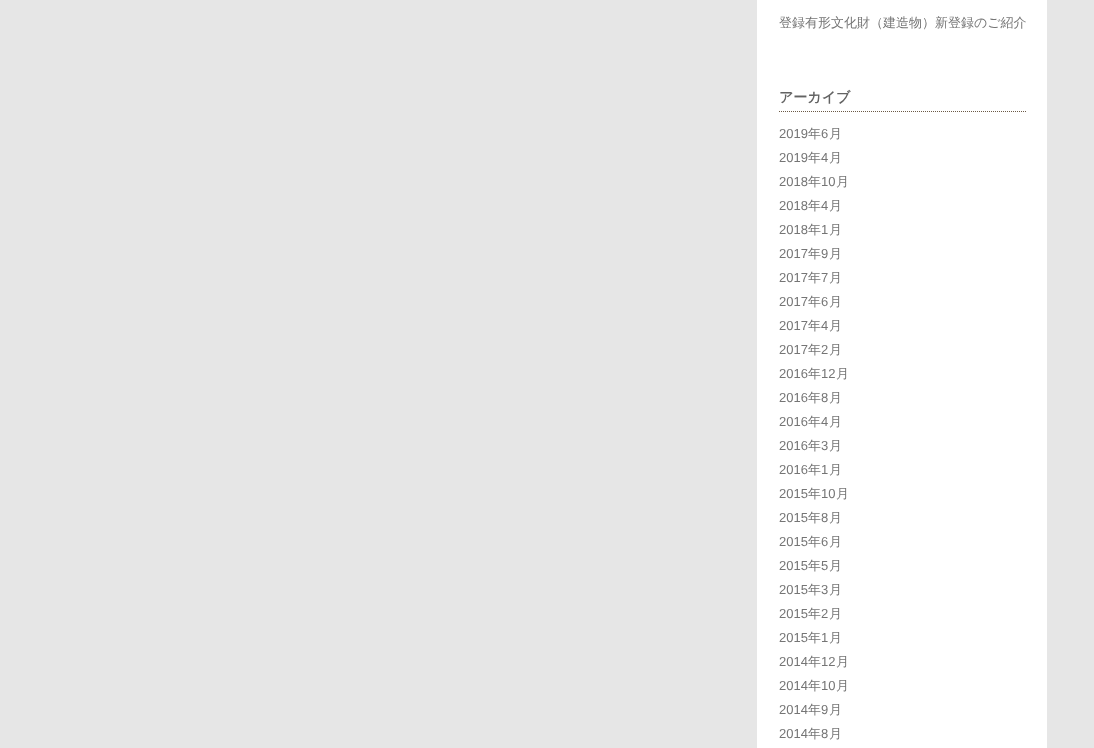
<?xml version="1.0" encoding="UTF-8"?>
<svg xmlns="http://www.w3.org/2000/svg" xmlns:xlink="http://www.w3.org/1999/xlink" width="1094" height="748">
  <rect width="100%" height="100%" fill="#e6e6e6" />
  <rect x="757" width="290" height="748" fill="#ffffff" />
  <path d="M 779 111.5 h 248" fill="none" stroke="#6c5a46" stroke-dasharray="1 1" />
  <text x="779" y="27" style="font-family: WenQuanYi Zen Hei; font-size: 13px; font-weight: 500; fill: #757575">登録有形文化財（建造物）新登録のご紹介</text>
  <text x="779" y="102" style="font-family: WenQuanYi Zen Hei; font-size: 14px; font-weight: bold; fill: #636363">アーカイブ</text>
  <text x="779" y="138" style="font-family: Liberation Sans; font-size: 13px; fill: #757575">2019</text>
  <text x="808" y="138" style="font-family: WenQuanYi Zen Hei; font-size: 13px; font-weight: 500; fill: #757575">年</text>
  <text x="821" y="138" style="font-family: Liberation Sans; font-size: 13px; fill: #757575">6</text>
  <text x="829" y="138" style="font-family: WenQuanYi Zen Hei; font-size: 13px; font-weight: 500; fill: #757575">月</text>
  <text x="779" y="162" style="font-family: Liberation Sans; font-size: 13px; fill: #757575">2019</text>
  <text x="808" y="162" style="font-family: WenQuanYi Zen Hei; font-size: 13px; font-weight: 500; fill: #757575">年</text>
  <text x="821" y="162" style="font-family: Liberation Sans; font-size: 13px; fill: #757575">4</text>
  <text x="829" y="162" style="font-family: WenQuanYi Zen Hei; font-size: 13px; font-weight: 500; fill: #757575">月</text>
  <text x="779" y="186" style="font-family: Liberation Sans; font-size: 13px; fill: #757575">2018</text>
  <text x="808" y="186" style="font-family: WenQuanYi Zen Hei; font-size: 13px; font-weight: 500; fill: #757575">年</text>
  <text x="821" y="186" style="font-family: Liberation Sans; font-size: 13px; fill: #757575">10</text>
  <text x="836" y="186" style="font-family: WenQuanYi Zen Hei; font-size: 13px; font-weight: 500; fill: #757575">月</text>
  <text x="779" y="210" style="font-family: Liberation Sans; font-size: 13px; fill: #757575">2018</text>
  <text x="808" y="210" style="font-family: WenQuanYi Zen Hei; font-size: 13px; font-weight: 500; fill: #757575">年</text>
  <text x="821" y="210" style="font-family: Liberation Sans; font-size: 13px; fill: #757575">4</text>
  <text x="829" y="210" style="font-family: WenQuanYi Zen Hei; font-size: 13px; font-weight: 500; fill: #757575">月</text>
  <text x="779" y="234" style="font-family: Liberation Sans; font-size: 13px; fill: #757575">2018</text>
  <text x="808" y="234" style="font-family: WenQuanYi Zen Hei; font-size: 13px; font-weight: 500; fill: #757575">年</text>
  <text x="821" y="234" style="font-family: Liberation Sans; font-size: 13px; fill: #757575">1</text>
  <text x="829" y="234" style="font-family: WenQuanYi Zen Hei; font-size: 13px; font-weight: 500; fill: #757575">月</text>
  <text x="779" y="258" style="font-family: Liberation Sans; font-size: 13px; fill: #757575">2017</text>
  <text x="808" y="258" style="font-family: WenQuanYi Zen Hei; font-size: 13px; font-weight: 500; fill: #757575">年</text>
  <text x="821" y="258" style="font-family: Liberation Sans; font-size: 13px; fill: #757575">9</text>
  <text x="829" y="258" style="font-family: WenQuanYi Zen Hei; font-size: 13px; font-weight: 500; fill: #757575">月</text>
  <text x="779" y="282" style="font-family: Liberation Sans; font-size: 13px; fill: #757575">2017</text>
  <text x="808" y="282" style="font-family: WenQuanYi Zen Hei; font-size: 13px; font-weight: 500; fill: #757575">年</text>
  <text x="821" y="282" style="font-family: Liberation Sans; font-size: 13px; fill: #757575">7</text>
  <text x="829" y="282" style="font-family: WenQuanYi Zen Hei; font-size: 13px; font-weight: 500; fill: #757575">月</text>
  <text x="779" y="306" style="font-family: Liberation Sans; font-size: 13px; fill: #757575">2017</text>
  <text x="808" y="306" style="font-family: WenQuanYi Zen Hei; font-size: 13px; font-weight: 500; fill: #757575">年</text>
  <text x="821" y="306" style="font-family: Liberation Sans; font-size: 13px; fill: #757575">6</text>
  <text x="829" y="306" style="font-family: WenQuanYi Zen Hei; font-size: 13px; font-weight: 500; fill: #757575">月</text>
  <text x="779" y="330" style="font-family: Liberation Sans; font-size: 13px; fill: #757575">2017</text>
  <text x="808" y="330" style="font-family: WenQuanYi Zen Hei; font-size: 13px; font-weight: 500; fill: #757575">年</text>
  <text x="821" y="330" style="font-family: Liberation Sans; font-size: 13px; fill: #757575">4</text>
  <text x="829" y="330" style="font-family: WenQuanYi Zen Hei; font-size: 13px; font-weight: 500; fill: #757575">月</text>
  <text x="779" y="354" style="font-family: Liberation Sans; font-size: 13px; fill: #757575">2017</text>
  <text x="808" y="354" style="font-family: WenQuanYi Zen Hei; font-size: 13px; font-weight: 500; fill: #757575">年</text>
  <text x="821" y="354" style="font-family: Liberation Sans; font-size: 13px; fill: #757575">2</text>
  <text x="829" y="354" style="font-family: WenQuanYi Zen Hei; font-size: 13px; font-weight: 500; fill: #757575">月</text>
  <text x="779" y="378" style="font-family: Liberation Sans; font-size: 13px; fill: #757575">2016</text>
  <text x="808" y="378" style="font-family: WenQuanYi Zen Hei; font-size: 13px; font-weight: 500; fill: #757575">年</text>
  <text x="821" y="378" style="font-family: Liberation Sans; font-size: 13px; fill: #757575">12</text>
  <text x="836" y="378" style="font-family: WenQuanYi Zen Hei; font-size: 13px; font-weight: 500; fill: #757575">月</text>
  <text x="779" y="402" style="font-family: Liberation Sans; font-size: 13px; fill: #757575">2016</text>
  <text x="808" y="402" style="font-family: WenQuanYi Zen Hei; font-size: 13px; font-weight: 500; fill: #757575">年</text>
  <text x="821" y="402" style="font-family: Liberation Sans; font-size: 13px; fill: #757575">8</text>
  <text x="829" y="402" style="font-family: WenQuanYi Zen Hei; font-size: 13px; font-weight: 500; fill: #757575">月</text>
  <text x="779" y="426" style="font-family: Liberation Sans; font-size: 13px; fill: #757575">2016</text>
  <text x="808" y="426" style="font-family: WenQuanYi Zen Hei; font-size: 13px; font-weight: 500; fill: #757575">年</text>
  <text x="821" y="426" style="font-family: Liberation Sans; font-size: 13px; fill: #757575">4</text>
  <text x="829" y="426" style="font-family: WenQuanYi Zen Hei; font-size: 13px; font-weight: 500; fill: #757575">月</text>
  <text x="779" y="450" style="font-family: Liberation Sans; font-size: 13px; fill: #757575">2016</text>
  <text x="808" y="450" style="font-family: WenQuanYi Zen Hei; font-size: 13px; font-weight: 500; fill: #757575">年</text>
  <text x="821" y="450" style="font-family: Liberation Sans; font-size: 13px; fill: #757575">3</text>
  <text x="829" y="450" style="font-family: WenQuanYi Zen Hei; font-size: 13px; font-weight: 500; fill: #757575">月</text>
  <text x="779" y="474" style="font-family: Liberation Sans; font-size: 13px; fill: #757575">2016</text>
  <text x="808" y="474" style="font-family: WenQuanYi Zen Hei; font-size: 13px; font-weight: 500; fill: #757575">年</text>
  <text x="821" y="474" style="font-family: Liberation Sans; font-size: 13px; fill: #757575">1</text>
  <text x="829" y="474" style="font-family: WenQuanYi Zen Hei; font-size: 13px; font-weight: 500; fill: #757575">月</text>
  <text x="779" y="498" style="font-family: Liberation Sans; font-size: 13px; fill: #757575">2015</text>
  <text x="808" y="498" style="font-family: WenQuanYi Zen Hei; font-size: 13px; font-weight: 500; fill: #757575">年</text>
  <text x="821" y="498" style="font-family: Liberation Sans; font-size: 13px; fill: #757575">10</text>
  <text x="836" y="498" style="font-family: WenQuanYi Zen Hei; font-size: 13px; font-weight: 500; fill: #757575">月</text>
  <text x="779" y="522" style="font-family: Liberation Sans; font-size: 13px; fill: #757575">2015</text>
  <text x="808" y="522" style="font-family: WenQuanYi Zen Hei; font-size: 13px; font-weight: 500; fill: #757575">年</text>
  <text x="821" y="522" style="font-family: Liberation Sans; font-size: 13px; fill: #757575">8</text>
  <text x="829" y="522" style="font-family: WenQuanYi Zen Hei; font-size: 13px; font-weight: 500; fill: #757575">月</text>
  <text x="779" y="546" style="font-family: Liberation Sans; font-size: 13px; fill: #757575">2015</text>
  <text x="808" y="546" style="font-family: WenQuanYi Zen Hei; font-size: 13px; font-weight: 500; fill: #757575">年</text>
  <text x="821" y="546" style="font-family: Liberation Sans; font-size: 13px; fill: #757575">6</text>
  <text x="829" y="546" style="font-family: WenQuanYi Zen Hei; font-size: 13px; font-weight: 500; fill: #757575">月</text>
  <text x="779" y="570" style="font-family: Liberation Sans; font-size: 13px; fill: #757575">2015</text>
  <text x="808" y="570" style="font-family: WenQuanYi Zen Hei; font-size: 13px; font-weight: 500; fill: #757575">年</text>
  <text x="821" y="570" style="font-family: Liberation Sans; font-size: 13px; fill: #757575">5</text>
  <text x="829" y="570" style="font-family: WenQuanYi Zen Hei; font-size: 13px; font-weight: 500; fill: #757575">月</text>
  <text x="779" y="594" style="font-family: Liberation Sans; font-size: 13px; fill: #757575">2015</text>
  <text x="808" y="594" style="font-family: WenQuanYi Zen Hei; font-size: 13px; font-weight: 500; fill: #757575">年</text>
  <text x="821" y="594" style="font-family: Liberation Sans; font-size: 13px; fill: #757575">3</text>
  <text x="829" y="594" style="font-family: WenQuanYi Zen Hei; font-size: 13px; font-weight: 500; fill: #757575">月</text>
  <text x="779" y="618" style="font-family: Liberation Sans; font-size: 13px; fill: #757575">2015</text>
  <text x="808" y="618" style="font-family: WenQuanYi Zen Hei; font-size: 13px; font-weight: 500; fill: #757575">年</text>
  <text x="821" y="618" style="font-family: Liberation Sans; font-size: 13px; fill: #757575">2</text>
  <text x="829" y="618" style="font-family: WenQuanYi Zen Hei; font-size: 13px; font-weight: 500; fill: #757575">月</text>
  <text x="779" y="642" style="font-family: Liberation Sans; font-size: 13px; fill: #757575">2015</text>
  <text x="808" y="642" style="font-family: WenQuanYi Zen Hei; font-size: 13px; font-weight: 500; fill: #757575">年</text>
  <text x="821" y="642" style="font-family: Liberation Sans; font-size: 13px; fill: #757575">1</text>
  <text x="829" y="642" style="font-family: WenQuanYi Zen Hei; font-size: 13px; font-weight: 500; fill: #757575">月</text>
  <text x="779" y="666" style="font-family: Liberation Sans; font-size: 13px; fill: #757575">2014</text>
  <text x="808" y="666" style="font-family: WenQuanYi Zen Hei; font-size: 13px; font-weight: 500; fill: #757575">年</text>
  <text x="821" y="666" style="font-family: Liberation Sans; font-size: 13px; fill: #757575">12</text>
  <text x="836" y="666" style="font-family: WenQuanYi Zen Hei; font-size: 13px; font-weight: 500; fill: #757575">月</text>
  <text x="779" y="690" style="font-family: Liberation Sans; font-size: 13px; fill: #757575">2014</text>
  <text x="808" y="690" style="font-family: WenQuanYi Zen Hei; font-size: 13px; font-weight: 500; fill: #757575">年</text>
  <text x="821" y="690" style="font-family: Liberation Sans; font-size: 13px; fill: #757575">10</text>
  <text x="836" y="690" style="font-family: WenQuanYi Zen Hei; font-size: 13px; font-weight: 500; fill: #757575">月</text>
  <text x="779" y="714" style="font-family: Liberation Sans; font-size: 13px; fill: #757575">2014</text>
  <text x="808" y="714" style="font-family: WenQuanYi Zen Hei; font-size: 13px; font-weight: 500; fill: #757575">年</text>
  <text x="821" y="714" style="font-family: Liberation Sans; font-size: 13px; fill: #757575">9</text>
  <text x="829" y="714" style="font-family: WenQuanYi Zen Hei; font-size: 13px; font-weight: 500; fill: #757575">月</text>
  <text x="779" y="738" style="font-family: Liberation Sans; font-size: 13px; fill: #757575">2014</text>
  <text x="808" y="738" style="font-family: WenQuanYi Zen Hei; font-size: 13px; font-weight: 500; fill: #757575">年</text>
  <text x="821" y="738" style="font-family: Liberation Sans; font-size: 13px; fill: #757575">8</text>
  <text x="829" y="738" style="font-family: WenQuanYi Zen Hei; font-size: 13px; font-weight: 500; fill: #757575">月</text>
</svg>
